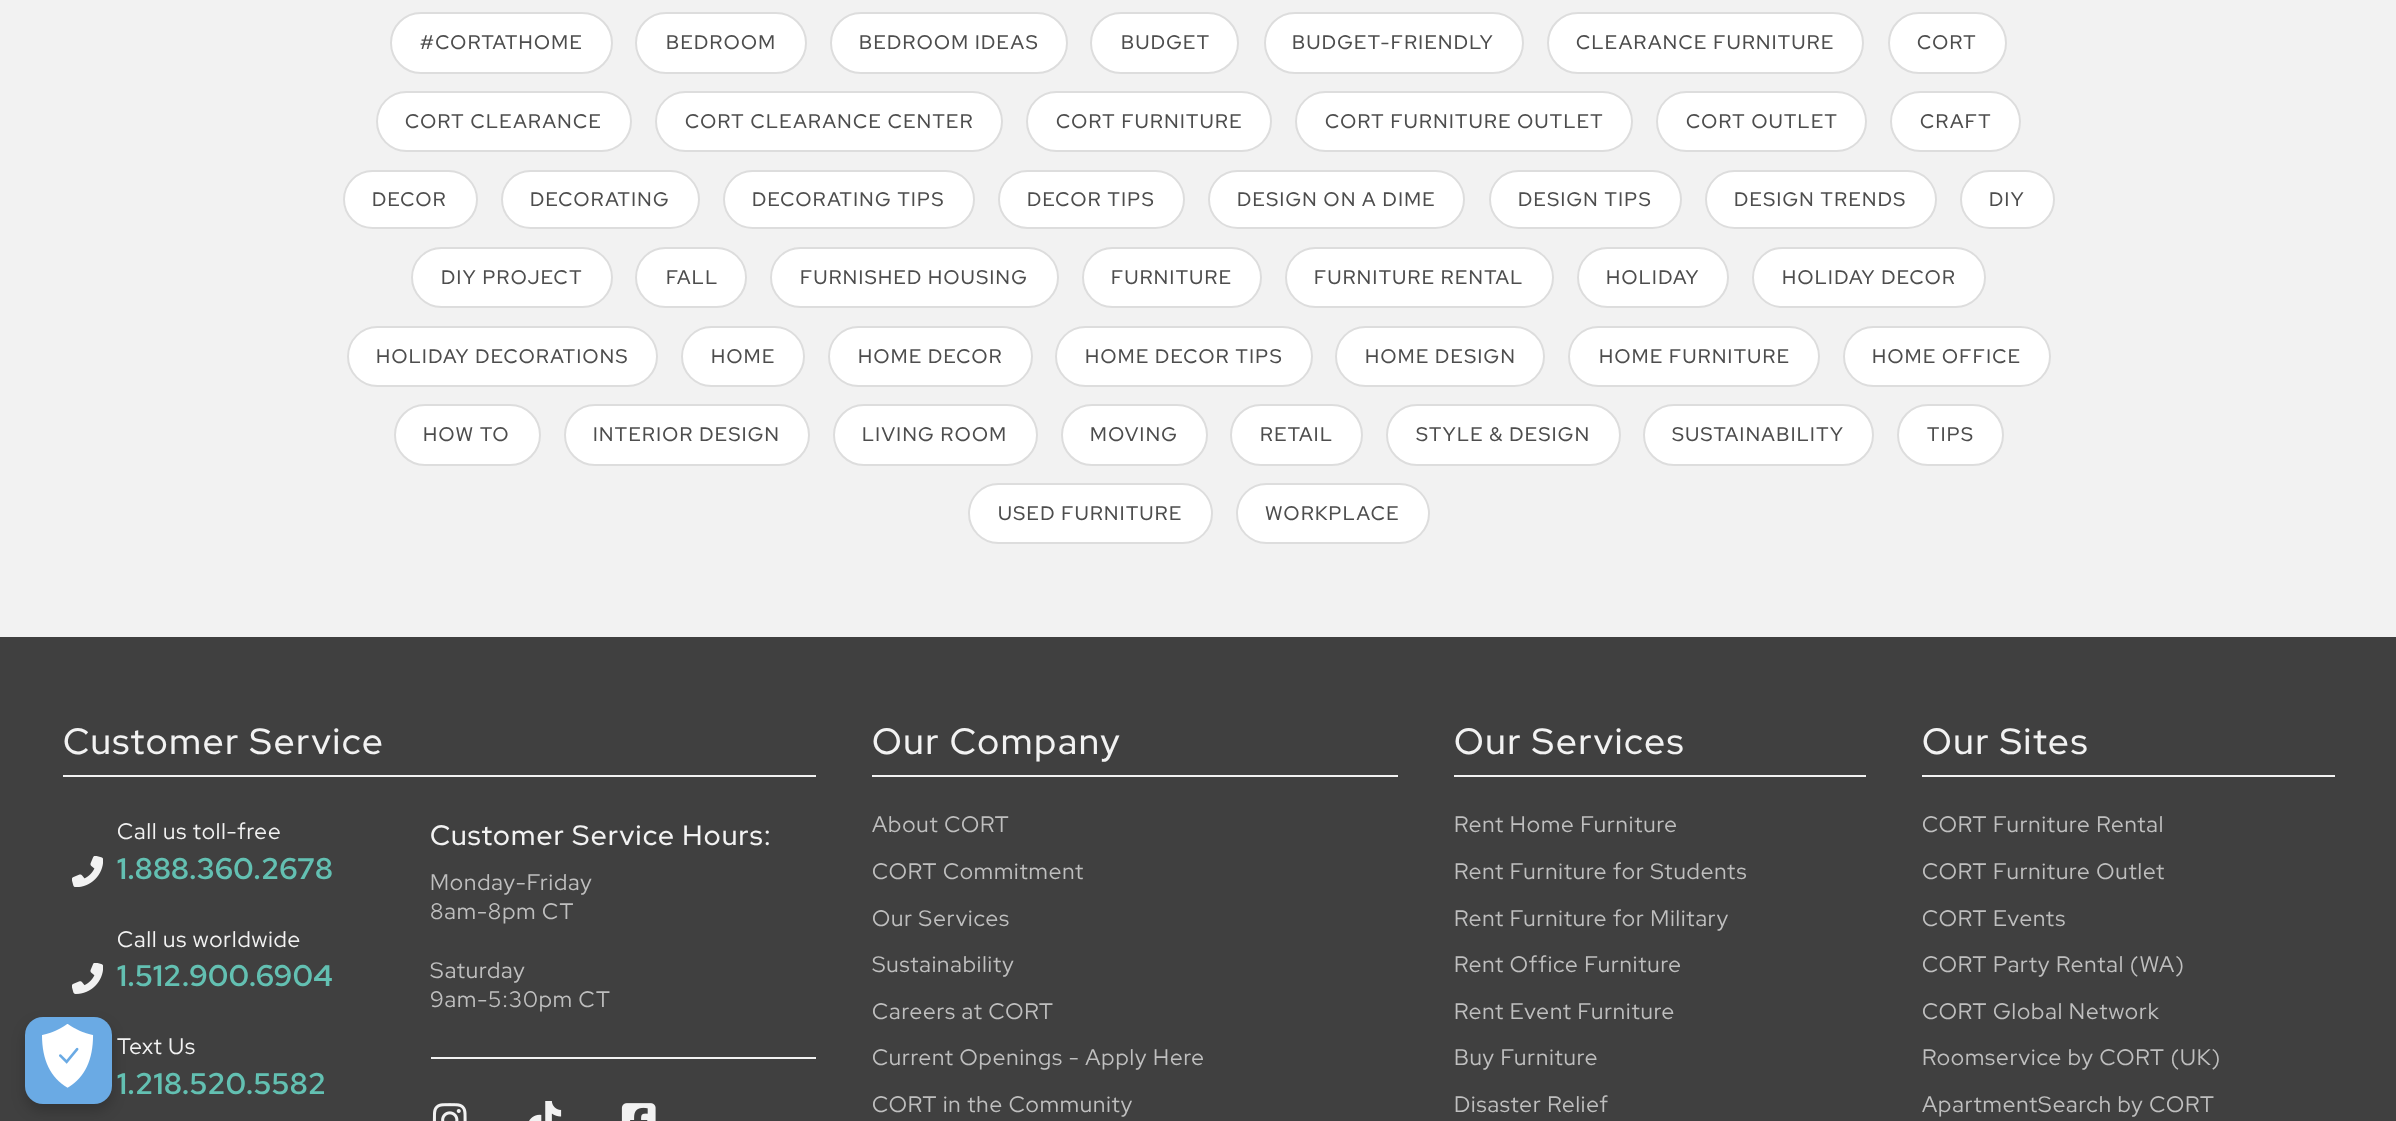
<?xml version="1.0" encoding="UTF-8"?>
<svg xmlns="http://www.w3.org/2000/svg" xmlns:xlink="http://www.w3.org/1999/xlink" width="2396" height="1121">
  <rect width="100%" height="100%" fill="#f2f2f2" />
  <rect x="391" y="13" width="221" height="60" rx="30" fill="#ffffff" stroke="#dddddd" stroke-width="2" />
  <rect x="636" y="13" width="170" height="60" rx="30" fill="#ffffff" stroke="#dddddd" stroke-width="2" />
  <rect x="831" y="13" width="236" height="60" rx="30" fill="#ffffff" stroke="#dddddd" stroke-width="2" />
  <rect x="1091" y="13" width="147" height="60" rx="30" fill="#ffffff" stroke="#dddddd" stroke-width="2" />
  <rect x="1265" y="13" width="258" height="60" rx="30" fill="#ffffff" stroke="#dddddd" stroke-width="2" />
  <rect x="1548" y="13" width="315" height="60" rx="30" fill="#ffffff" stroke="#dddddd" stroke-width="2" />
  <rect x="1889" y="13" width="117" height="60" rx="30" fill="#ffffff" stroke="#dddddd" stroke-width="2" />
  <rect x="377" y="92" width="254" height="59" rx="29.5" fill="#ffffff" stroke="#dddddd" stroke-width="2" />
  <rect x="656" y="92" width="346" height="59" rx="29.5" fill="#ffffff" stroke="#dddddd" stroke-width="2" />
  <rect x="1027" y="92" width="244" height="59" rx="29.5" fill="#ffffff" stroke="#dddddd" stroke-width="2" />
  <rect x="1296" y="92" width="336" height="59" rx="29.5" fill="#ffffff" stroke="#dddddd" stroke-width="2" />
  <rect x="1657" y="92" width="209" height="59" rx="29.5" fill="#ffffff" stroke="#dddddd" stroke-width="2" />
  <rect x="1891" y="92" width="129" height="59" rx="29.5" fill="#ffffff" stroke="#dddddd" stroke-width="2" />
  <rect x="344" y="171" width="133" height="57" rx="28.5" fill="#ffffff" stroke="#dddddd" stroke-width="2" />
  <rect x="502" y="171" width="197" height="57" rx="28.5" fill="#ffffff" stroke="#dddddd" stroke-width="2" />
  <rect x="724" y="171" width="250" height="57" rx="28.5" fill="#ffffff" stroke="#dddddd" stroke-width="2" />
  <rect x="999" y="171" width="185" height="57" rx="28.5" fill="#ffffff" stroke="#dddddd" stroke-width="2" />
  <rect x="1209" y="171" width="255" height="57" rx="28.5" fill="#ffffff" stroke="#dddddd" stroke-width="2" />
  <rect x="1490" y="171" width="191" height="57" rx="28.5" fill="#ffffff" stroke="#dddddd" stroke-width="2" />
  <rect x="1706" y="171" width="230" height="57" rx="28.5" fill="#ffffff" stroke="#dddddd" stroke-width="2" />
  <rect x="1961" y="171" width="93" height="57" rx="28.5" fill="#ffffff" stroke="#dddddd" stroke-width="2" />
  <rect x="412" y="248" width="200" height="59" rx="29.5" fill="#ffffff" stroke="#dddddd" stroke-width="2" />
  <rect x="636" y="248" width="110" height="59" rx="29.5" fill="#ffffff" stroke="#dddddd" stroke-width="2" />
  <rect x="771" y="248" width="287" height="59" rx="29.5" fill="#ffffff" stroke="#dddddd" stroke-width="2" />
  <rect x="1083" y="248" width="178" height="59" rx="29.5" fill="#ffffff" stroke="#dddddd" stroke-width="2" />
  <rect x="1286" y="248" width="267" height="59" rx="29.5" fill="#ffffff" stroke="#dddddd" stroke-width="2" />
  <rect x="1578" y="248" width="150" height="59" rx="29.5" fill="#ffffff" stroke="#dddddd" stroke-width="2" />
  <rect x="1753" y="248" width="232" height="59" rx="29.5" fill="#ffffff" stroke="#dddddd" stroke-width="2" />
  <rect x="348" y="327" width="309" height="59" rx="29.5" fill="#ffffff" stroke="#dddddd" stroke-width="2" />
  <rect x="682" y="327" width="122" height="59" rx="29.5" fill="#ffffff" stroke="#dddddd" stroke-width="2" />
  <rect x="829" y="327" width="203" height="59" rx="29.5" fill="#ffffff" stroke="#dddddd" stroke-width="2" />
  <rect x="1056" y="327" width="256" height="59" rx="29.5" fill="#ffffff" stroke="#dddddd" stroke-width="2" />
  <rect x="1336" y="327" width="208" height="59" rx="29.5" fill="#ffffff" stroke="#dddddd" stroke-width="2" />
  <rect x="1569" y="327" width="250" height="59" rx="29.5" fill="#ffffff" stroke="#dddddd" stroke-width="2" />
  <rect x="1844" y="327" width="206" height="59" rx="29.5" fill="#ffffff" stroke="#dddddd" stroke-width="2" />
  <rect x="395" y="405" width="145" height="60" rx="30" fill="#ffffff" stroke="#dddddd" stroke-width="2" />
  <rect x="565" y="405" width="244" height="60" rx="30" fill="#ffffff" stroke="#dddddd" stroke-width="2" />
  <rect x="834" y="405" width="203" height="60" rx="30" fill="#ffffff" stroke="#dddddd" stroke-width="2" />
  <rect x="1062" y="405" width="145" height="60" rx="30" fill="#ffffff" stroke="#dddddd" stroke-width="2" />
  <rect x="1231" y="405" width="131" height="60" rx="30" fill="#ffffff" stroke="#dddddd" stroke-width="2" />
  <rect x="1387" y="405" width="233" height="60" rx="30" fill="#ffffff" stroke="#dddddd" stroke-width="2" />
  <rect x="1644" y="405" width="229" height="60" rx="30" fill="#ffffff" stroke="#dddddd" stroke-width="2" />
  <rect x="1898" y="405" width="105" height="60" rx="30" fill="#ffffff" stroke="#dddddd" stroke-width="2" />
  <rect x="969" y="484" width="243" height="59" rx="29.5" fill="#ffffff" stroke="#dddddd" stroke-width="2" />
  <rect x="1237" y="484" width="192" height="59" rx="29.5" fill="#ffffff" stroke="#dddddd" stroke-width="2" />
  <rect y="637" width="2396" height="484" fill="#404040" />
  <rect x="63" y="775" width="753" height="2" fill="#f2f2f2" />
  <image x="72" y="856" width="31" height="31" xlink:href="image1.png" />
  <image x="72" y="963" width="31" height="31" xlink:href="image2.png" />
  <rect x="431" y="1057" width="385" height="2" fill="#f2f2f2" />
  <image x="432" y="1103" width="35" height="18" xlink:href="image3.png" />
  <image x="529" y="1101" width="33" height="20" xlink:href="image4.png" />
  <image x="621" y="1103" width="35" height="18" xlink:href="image5.png" />
  <rect x="872" y="775" width="526" height="2" fill="#f2f2f2" />
  <rect x="1454" y="775" width="412" height="2" fill="#f2f2f2" />
  <rect x="1922" y="775" width="413" height="2" fill="#f2f2f2" />
  <rect x="25" y="1024" width="87" height="87" rx="18" fill="#000000" fill-opacity="0.2" filter="blur(7px)" />
  <rect x="25" y="1017" width="87" height="87" rx="18" fill="#6aaae4" />
  <image x="42" y="1024" width="52" height="64" xlink:href="image6.png" />
  <text x="420" y="49" style="font-family: Red Hat Display; font-size: 19.6px; font-weight: 500; letter-spacing: 1.4px; fill: #4d4d4d">#CORTATHOME</text>
  <text x="666" y="49" style="font-family: Red Hat Display; font-size: 19.6px; font-weight: 500; letter-spacing: 1.4px; fill: #4d4d4d">BEDROOM</text>
  <text x="859" y="49" style="font-family: Red Hat Display; font-size: 19.6px; font-weight: 500; letter-spacing: 1.4px; fill: #4d4d4d">BEDROOM IDEAS</text>
  <text x="1121" y="49" style="font-family: Red Hat Display; font-size: 19.6px; font-weight: 500; letter-spacing: 1.4px; fill: #4d4d4d">BUDGET</text>
  <text x="1292" y="49" style="font-family: Red Hat Display; font-size: 19.6px; font-weight: 500; letter-spacing: 1.4px; fill: #4d4d4d">BUDGET-FRIENDLY</text>
  <text x="1576" y="49" style="font-family: Red Hat Display; font-size: 19.6px; font-weight: 500; letter-spacing: 1.4px; fill: #4d4d4d">CLEARANCE FURNITURE</text>
  <text x="1917" y="49" style="font-family: Red Hat Display; font-size: 19.6px; font-weight: 500; letter-spacing: 1.4px; fill: #4d4d4d">CORT</text>
  <text x="405" y="128" style="font-family: Red Hat Display; font-size: 19.6px; font-weight: 500; letter-spacing: 1.4px; fill: #4d4d4d">CORT CLEARANCE</text>
  <text x="685" y="128" style="font-family: Red Hat Display; font-size: 19.6px; font-weight: 500; letter-spacing: 1.4px; fill: #4d4d4d">CORT CLEARANCE CENTER</text>
  <text x="1056" y="128" style="font-family: Red Hat Display; font-size: 19.6px; font-weight: 500; letter-spacing: 1.4px; fill: #4d4d4d">CORT FURNITURE</text>
  <text x="1325" y="128" style="font-family: Red Hat Display; font-size: 19.6px; font-weight: 500; letter-spacing: 1.4px; fill: #4d4d4d">CORT FURNITURE OUTLET</text>
  <text x="1686" y="128" style="font-family: Red Hat Display; font-size: 19.6px; font-weight: 500; letter-spacing: 1.4px; fill: #4d4d4d">CORT OUTLET</text>
  <text x="1920" y="128" style="font-family: Red Hat Display; font-size: 19.6px; font-weight: 500; letter-spacing: 1.4px; fill: #4d4d4d">CRAFT</text>
  <text x="372" y="206" style="font-family: Red Hat Display; font-size: 19.6px; font-weight: 500; letter-spacing: 1.4px; fill: #4d4d4d">DECOR</text>
  <text x="530" y="206" style="font-family: Red Hat Display; font-size: 19.6px; font-weight: 500; letter-spacing: 1.4px; fill: #4d4d4d">DECORATING</text>
  <text x="752" y="206" style="font-family: Red Hat Display; font-size: 19.6px; font-weight: 500; letter-spacing: 1.4px; fill: #4d4d4d">DECORATING TIPS</text>
  <text x="1027" y="206" style="font-family: Red Hat Display; font-size: 19.6px; font-weight: 500; letter-spacing: 1.4px; fill: #4d4d4d">DECOR TIPS</text>
  <text x="1237" y="206" style="font-family: Red Hat Display; font-size: 19.6px; font-weight: 500; letter-spacing: 1.4px; fill: #4d4d4d">DESIGN ON A DIME</text>
  <text x="1518" y="206" style="font-family: Red Hat Display; font-size: 19.6px; font-weight: 500; letter-spacing: 1.4px; fill: #4d4d4d">DESIGN TIPS</text>
  <text x="1734" y="206" style="font-family: Red Hat Display; font-size: 19.6px; font-weight: 500; letter-spacing: 1.4px; fill: #4d4d4d">DESIGN TRENDS</text>
  <text x="1989" y="206" style="font-family: Red Hat Display; font-size: 19.6px; font-weight: 500; letter-spacing: 1.4px; fill: #4d4d4d">DIY</text>
  <text x="441" y="284" style="font-family: Red Hat Display; font-size: 19.6px; font-weight: 500; letter-spacing: 1.4px; fill: #4d4d4d">DIY PROJECT</text>
  <text x="666" y="284" style="font-family: Red Hat Display; font-size: 19.6px; font-weight: 500; letter-spacing: 1.4px; fill: #4d4d4d">FALL</text>
  <text x="800" y="284" style="font-family: Red Hat Display; font-size: 19.6px; font-weight: 500; letter-spacing: 1.4px; fill: #4d4d4d">FURNISHED HOUSING</text>
  <text x="1111" y="284" style="font-family: Red Hat Display; font-size: 19.6px; font-weight: 500; letter-spacing: 1.4px; fill: #4d4d4d">FURNITURE</text>
  <text x="1314" y="284" style="font-family: Red Hat Display; font-size: 19.6px; font-weight: 500; letter-spacing: 1.4px; fill: #4d4d4d">FURNITURE RENTAL</text>
  <text x="1606" y="284" style="font-family: Red Hat Display; font-size: 19.6px; font-weight: 500; letter-spacing: 1.4px; fill: #4d4d4d">HOLIDAY</text>
  <text x="1782" y="284" style="font-family: Red Hat Display; font-size: 19.6px; font-weight: 500; letter-spacing: 1.4px; fill: #4d4d4d">HOLIDAY DECOR</text>
  <text x="376" y="363" style="font-family: Red Hat Display; font-size: 19.6px; font-weight: 500; letter-spacing: 1.4px; fill: #4d4d4d">HOLIDAY DECORATIONS</text>
  <text x="711" y="363" style="font-family: Red Hat Display; font-size: 19.6px; font-weight: 500; letter-spacing: 1.4px; fill: #4d4d4d">HOME</text>
  <text x="858" y="363" style="font-family: Red Hat Display; font-size: 19.6px; font-weight: 500; letter-spacing: 1.4px; fill: #4d4d4d">HOME DECOR</text>
  <text x="1085" y="363" style="font-family: Red Hat Display; font-size: 19.6px; font-weight: 500; letter-spacing: 1.4px; fill: #4d4d4d">HOME DECOR TIPS</text>
  <text x="1365" y="363" style="font-family: Red Hat Display; font-size: 19.6px; font-weight: 500; letter-spacing: 1.4px; fill: #4d4d4d">HOME DESIGN</text>
  <text x="1599" y="363" style="font-family: Red Hat Display; font-size: 19.6px; font-weight: 500; letter-spacing: 1.4px; fill: #4d4d4d">HOME FURNITURE</text>
  <text x="1872" y="363" style="font-family: Red Hat Display; font-size: 19.6px; font-weight: 500; letter-spacing: 1.4px; fill: #4d4d4d">HOME OFFICE</text>
  <text x="423" y="441" style="font-family: Red Hat Display; font-size: 19.6px; font-weight: 500; letter-spacing: 1.4px; fill: #4d4d4d">HOW TO</text>
  <text x="593" y="441" style="font-family: Red Hat Display; font-size: 19.6px; font-weight: 500; letter-spacing: 1.4px; fill: #4d4d4d">INTERIOR DESIGN</text>
  <text x="862" y="441" style="font-family: Red Hat Display; font-size: 19.6px; font-weight: 500; letter-spacing: 1.4px; fill: #4d4d4d">LIVING ROOM</text>
  <text x="1090" y="441" style="font-family: Red Hat Display; font-size: 19.6px; font-weight: 500; letter-spacing: 1.4px; fill: #4d4d4d">MOVING</text>
  <text x="1260" y="441" style="font-family: Red Hat Display; font-size: 19.6px; font-weight: 500; letter-spacing: 1.4px; fill: #4d4d4d">RETAIL</text>
  <text x="1416" y="441" style="font-family: Red Hat Display; font-size: 19.6px; font-weight: 500; letter-spacing: 1.4px; fill: #4d4d4d">STYLE &amp; DESIGN</text>
  <text x="1672" y="441" style="font-family: Red Hat Display; font-size: 19.6px; font-weight: 500; letter-spacing: 1.4px; fill: #4d4d4d">SUSTAINABILITY</text>
  <text x="1927" y="441" style="font-family: Red Hat Display; font-size: 19.6px; font-weight: 500; letter-spacing: 1.4px; fill: #4d4d4d">TIPS</text>
  <text x="998" y="520" style="font-family: Red Hat Display; font-size: 19.6px; font-weight: 500; letter-spacing: 1.4px; fill: #4d4d4d">USED FURNITURE</text>
  <text x="1265" y="520" style="font-family: Red Hat Display; font-size: 19.6px; font-weight: 500; letter-spacing: 1.4px; fill: #4d4d4d">WORKPLACE</text>
  <text x="63" y="754" style="font-family: Red Hat Display; font-size: 36.5px; font-weight: 500; letter-spacing: 1.75px; fill: #f2f2f2">Customer Service</text>
  <text x="117" y="839" style="font-family: Red Hat Display; font-size: 22.4px; letter-spacing: 0.9px; fill: #f2f2f2">Call us toll-free</text>
  <text x="117" y="879" style="font-family: Red Hat Display; font-size: 29.75px; font-weight: bold; letter-spacing: 0.5px; fill: #63c0b2">1.888.360.2678</text>
  <text x="117" y="947" style="font-family: Red Hat Display; font-size: 22.4px; letter-spacing: 0.9px; fill: #f2f2f2">Call us worldwide</text>
  <text x="117" y="986" style="font-family: Red Hat Display; font-size: 29.75px; font-weight: bold; letter-spacing: 0.5px; fill: #63c0b2">1.512.900.6904</text>
  <text x="117" y="1054" style="font-family: Red Hat Display; font-size: 22.4px; letter-spacing: 0.9px; fill: #f2f2f2">Text Us</text>
  <text x="117" y="1094" style="font-family: Red Hat Display; font-size: 29.75px; font-weight: bold; letter-spacing: 0.5px; fill: #63c0b2">1.218.520.5582</text>
  <text x="430" y="845" style="font-family: Red Hat Display; font-size: 28px; font-weight: 500; letter-spacing: 1.25px; fill: #f2f2f2">Customer Service Hours:</text>
  <text x="430" y="890" style="font-family: Red Hat Display; font-size: 22.4px; letter-spacing: 0.9px; fill: #bfbfbf">Monday-Friday</text>
  <text x="430" y="919" style="font-family: Red Hat Display; font-size: 22.4px; letter-spacing: 0.9px; fill: #bfbfbf">8am-8pm CT</text>
  <text x="430" y="978" style="font-family: Red Hat Display; font-size: 22.4px; letter-spacing: 0.9px; fill: #bfbfbf">Saturday</text>
  <text x="430" y="1007" style="font-family: Red Hat Display; font-size: 22.4px; letter-spacing: 0.9px; fill: #bfbfbf">9am-5:30pm CT</text>
  <text x="872" y="754" style="font-family: Red Hat Display; font-size: 36.5px; font-weight: 500; letter-spacing: 1.75px; fill: #f2f2f2">Our Company</text>
  <text x="872" y="832" style="font-family: Red Hat Display; font-size: 22.4px; letter-spacing: 0.9px; fill: #bfbfbf">About CORT</text>
  <text x="872" y="879" style="font-family: Red Hat Display; font-size: 22.4px; letter-spacing: 0.9px; fill: #bfbfbf">CORT Commitment</text>
  <text x="872" y="926" style="font-family: Red Hat Display; font-size: 22.4px; letter-spacing: 0.9px; fill: #bfbfbf">Our Services</text>
  <text x="872" y="972" style="font-family: Red Hat Display; font-size: 22.4px; letter-spacing: 0.9px; fill: #bfbfbf">Sustainability</text>
  <text x="872" y="1019" style="font-family: Red Hat Display; font-size: 22.4px; letter-spacing: 0.9px; fill: #bfbfbf">Careers at CORT</text>
  <text x="872" y="1065" style="font-family: Red Hat Display; font-size: 22.4px; letter-spacing: 0.9px; fill: #bfbfbf">Current Openings - Apply Here</text>
  <text x="872" y="1112" style="font-family: Red Hat Display; font-size: 22.4px; letter-spacing: 0.9px; fill: #bfbfbf">CORT in the Community</text>
  <text x="1454" y="754" style="font-family: Red Hat Display; font-size: 36.5px; font-weight: 500; letter-spacing: 1.75px; fill: #f2f2f2">Our Services</text>
  <text x="1454" y="832" style="font-family: Red Hat Display; font-size: 22.4px; letter-spacing: 0.9px; fill: #bfbfbf">Rent Home Furniture</text>
  <text x="1454" y="879" style="font-family: Red Hat Display; font-size: 22.4px; letter-spacing: 0.9px; fill: #bfbfbf">Rent Furniture for Students</text>
  <text x="1454" y="926" style="font-family: Red Hat Display; font-size: 22.4px; letter-spacing: 0.9px; fill: #bfbfbf">Rent Furniture for Military</text>
  <text x="1454" y="972" style="font-family: Red Hat Display; font-size: 22.4px; letter-spacing: 0.9px; fill: #bfbfbf">Rent Office Furniture</text>
  <text x="1454" y="1019" style="font-family: Red Hat Display; font-size: 22.4px; letter-spacing: 0.9px; fill: #bfbfbf">Rent Event Furniture</text>
  <text x="1454" y="1065" style="font-family: Red Hat Display; font-size: 22.4px; letter-spacing: 0.9px; fill: #bfbfbf">Buy Furniture</text>
  <text x="1454" y="1112" style="font-family: Red Hat Display; font-size: 22.4px; letter-spacing: 0.9px; fill: #bfbfbf">Disaster Relief</text>
  <text x="1922" y="754" style="font-family: Red Hat Display; font-size: 36.5px; font-weight: 500; letter-spacing: 1.75px; fill: #f2f2f2">Our Sites</text>
  <text x="1922" y="832" style="font-family: Red Hat Display; font-size: 22.4px; letter-spacing: 0.9px; fill: #bfbfbf">CORT Furniture Rental</text>
  <text x="1922" y="879" style="font-family: Red Hat Display; font-size: 22.4px; letter-spacing: 0.9px; fill: #bfbfbf">CORT Furniture Outlet</text>
  <text x="1922" y="926" style="font-family: Red Hat Display; font-size: 22.4px; letter-spacing: 0.9px; fill: #bfbfbf">CORT Events</text>
  <text x="1922" y="972" style="font-family: Red Hat Display; font-size: 22.4px; letter-spacing: 0.9px; fill: #bfbfbf">CORT Party Rental (WA)</text>
  <text x="1922" y="1019" style="font-family: Red Hat Display; font-size: 22.4px; letter-spacing: 0.9px; fill: #bfbfbf">CORT Global Network</text>
  <text x="1922" y="1065" style="font-family: Red Hat Display; font-size: 22.4px; letter-spacing: 0.9px; fill: #bfbfbf">Roomservice by CORT (UK)</text>
  <text x="1922" y="1112" style="font-family: Red Hat Display; font-size: 22.4px; letter-spacing: 0.9px; fill: #bfbfbf">ApartmentSearch by CORT</text>
</svg>
